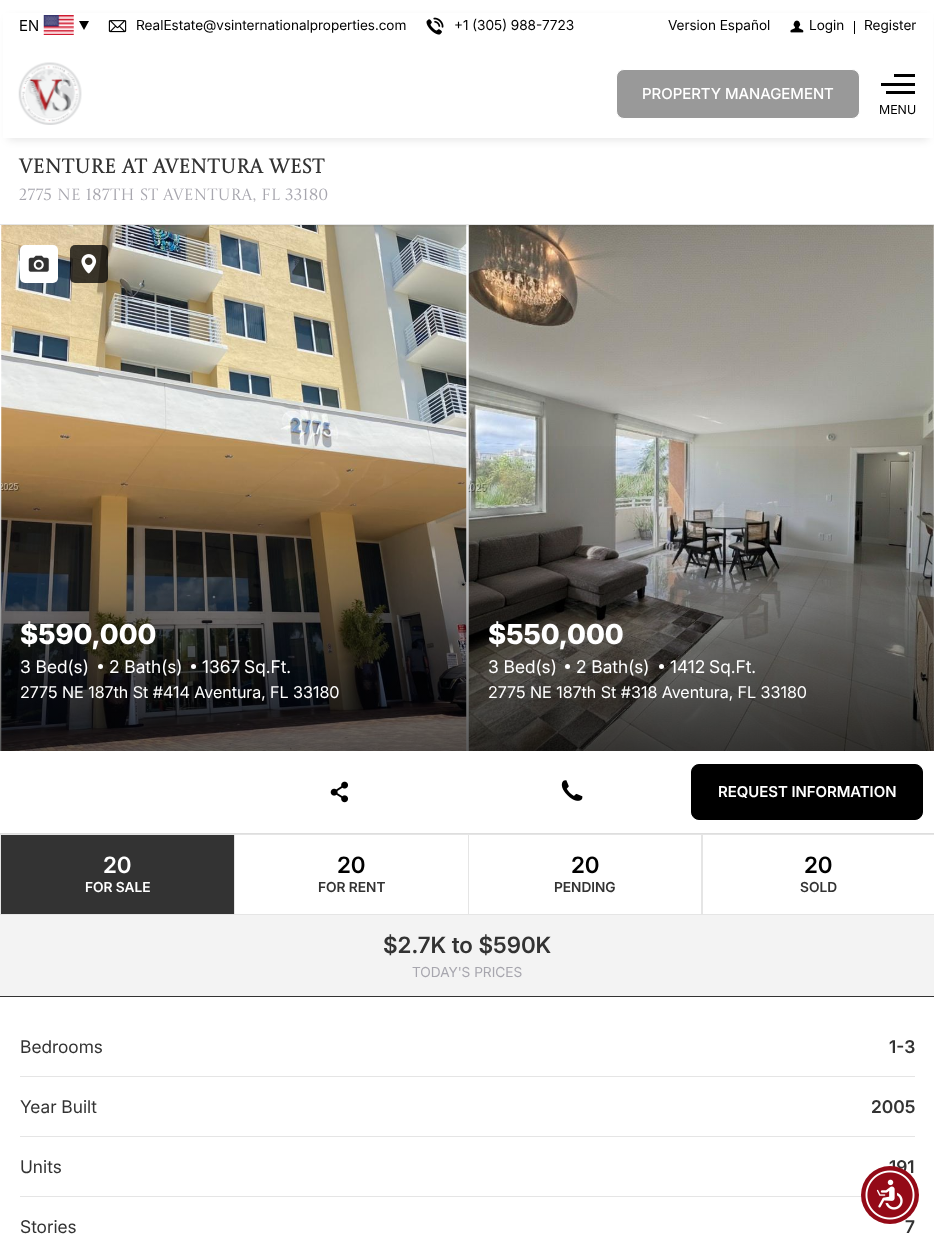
<?xml version="1.0" encoding="UTF-8"?>
<svg xmlns="http://www.w3.org/2000/svg" xmlns:xlink="http://www.w3.org/1999/xlink" width="934" height="1239">
  <defs>
    <clipPath id="clip1"><rect x="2" y="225" width="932" height="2" /></clipPath>
    <linearGradient id="g1" gradientUnits="userSpaceOnUse" x1="234" y1="225" x2="234" y2="751"><stop offset="0.4" stop-color="#000000" stop-opacity="0" /><stop offset="1" stop-color="#000000" stop-opacity="0.65" /></linearGradient>
    <linearGradient id="g2" gradientUnits="userSpaceOnUse" x1="701" y1="225" x2="701" y2="751"><stop offset="0.4" stop-color="#000000" stop-opacity="0" /><stop offset="1" stop-color="#000000" stop-opacity="0.65" /></linearGradient>
  </defs>
  <rect width="100%" height="100%" fill="#ffffff" />
  <rect x="8" y="18" width="920" height="122" fill="#000000" fill-opacity="0.1" filter="blur(4px)" />
  <image x="1" y="225" width="466" height="526" xlink:href="image8.png" />
  <image x="468" y="225" width="466" height="526" xlink:href="image9.png" />
  <g clip-path="url(#clip1)">
    <rect x="3" y="143" width="930" height="82" fill="#000000" fill-opacity="0.16" filter="blur(2px)" />
  </g>
  <rect x="3" y="13" width="930" height="125" fill="#ffffff" />
  <image x="43" y="15" width="31" height="20" xlink:href="image1.png" />
  <path d="M 79 21 h 10 l -5 9 z" fill="#000000" />
  <image x="108" y="20" width="19" height="13" xlink:href="image2.png" />
  <image x="426" y="17" width="18" height="18" xlink:href="image3.png" />
  <image x="790" y="20" width="14" height="13" xlink:href="image4.png" />
  <rect x="854" y="21" width="1" height="13" fill="#000000" />
  <image x="18" y="62" width="64" height="63" xlink:href="image5.png" />
  <rect x="616.5" y="69.5" width="243" height="49" rx="7.5" fill="#999999" stroke="#ffffff" />
  <rect x="894" y="74" width="21" height="3" fill="#000000" />
  <rect x="881" y="83" width="34" height="3" fill="#000000" />
  <rect x="886" y="91" width="29" height="3" fill="#000000" />
  <rect y="224" width="934" height="1" fill="#e5e5e5" />
  <rect x="20" y="245" width="38" height="38" rx="5" fill="#ffffff" />
  <image x="28" y="255" width="21" height="17" xlink:href="image6.png" />
  <rect x="70" y="245" width="38" height="38" rx="5" fill="#000000" fill-opacity="0.75" />
  <image x="81" y="254" width="16" height="20" xlink:href="image7.png" />
  <rect y="446" width="468" height="305" fill="url(#g1)" />
  <circle cx="100.5" cy="666.5" r="2.5" fill="#ffffff" />
  <circle cx="193.5" cy="666.5" r="2.5" fill="#ffffff" />
  <rect x="468" y="446" width="466" height="305" fill="url(#g2)" />
  <circle cx="567.5" cy="666.5" r="2.5" fill="#ffffff" />
  <circle cx="661.5" cy="666.5" r="2.5" fill="#ffffff" />
  <rect y="833" width="934" height="1" fill="#dedede" />
  <image x="330" y="781" width="19" height="22" xlink:href="image10.png" />
  <image x="561" y="780" width="22" height="21" xlink:href="image11.png" />
  <rect x="691.5" y="764.5" width="231" height="55" rx="7.5" fill="#000000" stroke="#000000" />
  <rect y="996" width="934" height="1" fill="#333333" />
  <rect x="0.5" y="834.5" width="234" height="80" fill="none" stroke="#e5e5e5" />
  <rect x="1" y="835" width="233" height="79" fill="#333333" />
  <rect x="234.5" y="834.5" width="234" height="80" fill="none" stroke="#e5e5e5" />
  <rect x="468.5" y="834.5" width="234" height="80" fill="none" stroke="#e5e5e5" />
  <rect x="701.5" y="834.5" width="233" height="80" fill="none" stroke="#e5e5e5" />
  <rect y="915" width="934" height="81" fill="#f3f3f3" />
  <rect x="20" y="1076" width="895" height="1" fill="#e5e5e5" />
  <rect x="20" y="1136" width="895" height="1" fill="#e5e5e5" />
  <rect x="20" y="1196" width="842" height="1" fill="#e5e5e5" />
  <text x="19" y="31" style="font-family: Inter; font-size: 15px; fill: #000000">EN</text>
  <text x="136" y="30" style="font-family: Inter; font-size: 13.75px; fill: #000000">RealEstate@vsinternationalproperties.com</text>
  <text x="454" y="30" style="font-family: Inter; font-size: 13.75px; fill: #000000">+1 (305) 988-7723</text>
  <text x="668" y="30" style="font-family: Inter; font-size: 13.75px; fill: #000000">Version Español</text>
  <text x="809" y="30" style="font-family: Inter; font-size: 13.75px; fill: #000000">Login</text>
  <text x="864" y="30" style="font-family: Inter; font-size: 13.75px; fill: #000000">Register</text>
  <text x="642" y="99" style="font-family: Inter; font-size: 15px; font-weight: 500; fill: #ffffff">PROPERTY MANAGEMENT</text>
  <text x="879" y="114" style="font-family: Inter; font-size: 12.5px; fill: #000000">MENU</text>
  <text x="19" y="173" style="font-family: Castoro Titling; font-size: 20px; font-weight: bold; fill: #333333">Venture at Aventura West</text>
  <text x="19" y="200" style="font-family: Castoro Titling; font-size: 16.25px; fill: #a7a6ae">2775 NE 187TH ST AVENTURA, FL 33180</text>
  <text x="20" y="644" style="font-family: Inter; font-size: 27.5px; font-weight: 800; fill: #ffffff">$590,000</text>
  <text x="20" y="673" style="font-family: Inter; font-size: 17.5px; fill: #ffffff">3 Bed(s)</text>
  <text x="109" y="673" style="font-family: Inter; font-size: 17.5px; fill: #ffffff">2 Bath(s)</text>
  <text x="202" y="673" style="font-family: Inter; font-size: 17.5px; fill: #ffffff">1367</text>
  <text x="244" y="673" style="font-family: Inter; font-size: 17.5px; fill: #ffffff">Sq.Ft.</text>
  <text x="20" y="698" style="font-family: Inter; font-size: 16.25px; fill: #ffffff">2775 NE 187th St #414 Aventura, FL 33180</text>
  <text x="488" y="644" style="font-family: Inter; font-size: 27.5px; font-weight: 800; fill: #ffffff">$550,000</text>
  <text x="488" y="673" style="font-family: Inter; font-size: 17.5px; fill: #ffffff">3 Bed(s)</text>
  <text x="576" y="673" style="font-family: Inter; font-size: 17.5px; fill: #ffffff">2 Bath(s)</text>
  <text x="670" y="673" style="font-family: Inter; font-size: 17.5px; fill: #ffffff">1412</text>
  <text x="709" y="673" style="font-family: Inter; font-size: 17.5px; fill: #ffffff">Sq.Ft.</text>
  <text x="488" y="698" style="font-family: Inter; font-size: 16.25px; fill: #ffffff">2775 NE 187th St #318 Aventura, FL 33180</text>
  <text x="718" y="797" style="font-family: Inter; font-size: 15px; font-weight: 600; fill: #ffffff">REQUEST INFORMATION</text>
  <text x="103" y="873" style="font-family: Inter; font-size: 22.5px; font-weight: 600; fill: #ffffff">20</text>
  <text x="85" y="892" style="font-family: Inter; font-size: 13.75px; font-weight: 600; fill: #ffffff">FOR SALE</text>
  <text x="337" y="873" style="font-family: Inter; font-size: 22.5px; font-weight: 600; fill: #000000">20</text>
  <text x="318" y="892" style="font-family: Inter; font-size: 13.75px; font-weight: 600; fill: #333333">FOR RENT</text>
  <text x="571" y="873" style="font-family: Inter; font-size: 22.5px; font-weight: 600; fill: #000000">20</text>
  <text x="554" y="892" style="font-family: Inter; font-size: 13.75px; font-weight: 600; fill: #333333">PENDING</text>
  <text x="804" y="873" style="font-family: Inter; font-size: 22.5px; font-weight: 600; fill: #000000">20</text>
  <text x="800" y="892" style="font-family: Inter; font-size: 13.75px; font-weight: 600; fill: #333333">SOLD</text>
  <text x="383" y="953" style="font-family: Inter; font-size: 22.5px; font-weight: 600; fill: #333333">$2.7K to $590K</text>
  <text x="412" y="977" style="font-family: Inter; font-size: 13.75px; fill: #a7a6ae">TODAY'S PRICES</text>
  <text x="20" y="1053" style="font-family: Inter; font-size: 17.5px; fill: #333333">Bedrooms</text>
  <text x="889" y="1053" style="font-family: Inter; font-size: 17.5px; font-weight: 600; fill: #333333">1-3</text>
  <text x="20" y="1113" style="font-family: Inter; font-size: 17.5px; fill: #333333">Year Built</text>
  <text x="871" y="1113" style="font-family: Inter; font-size: 17.5px; font-weight: 600; fill: #333333">2005</text>
  <text x="20" y="1173" style="font-family: Inter; font-size: 17.5px; fill: #333333">Units</text>
  <text x="889" y="1173" style="font-family: Inter; font-size: 17.5px; font-weight: 600; fill: #333333">191</text>
  <text x="20" y="1233" style="font-family: Inter; font-size: 17.5px; fill: #333333">Stories</text>
  <text x="905" y="1233" style="font-family: Inter; font-size: 17.5px; font-weight: 600; fill: #333333">7</text>
  <circle cx="890" cy="1195" r="29" fill="#940a17" />
  <image x="865" y="1170" width="50" height="50" xlink:href="image12.png" />
</svg>
